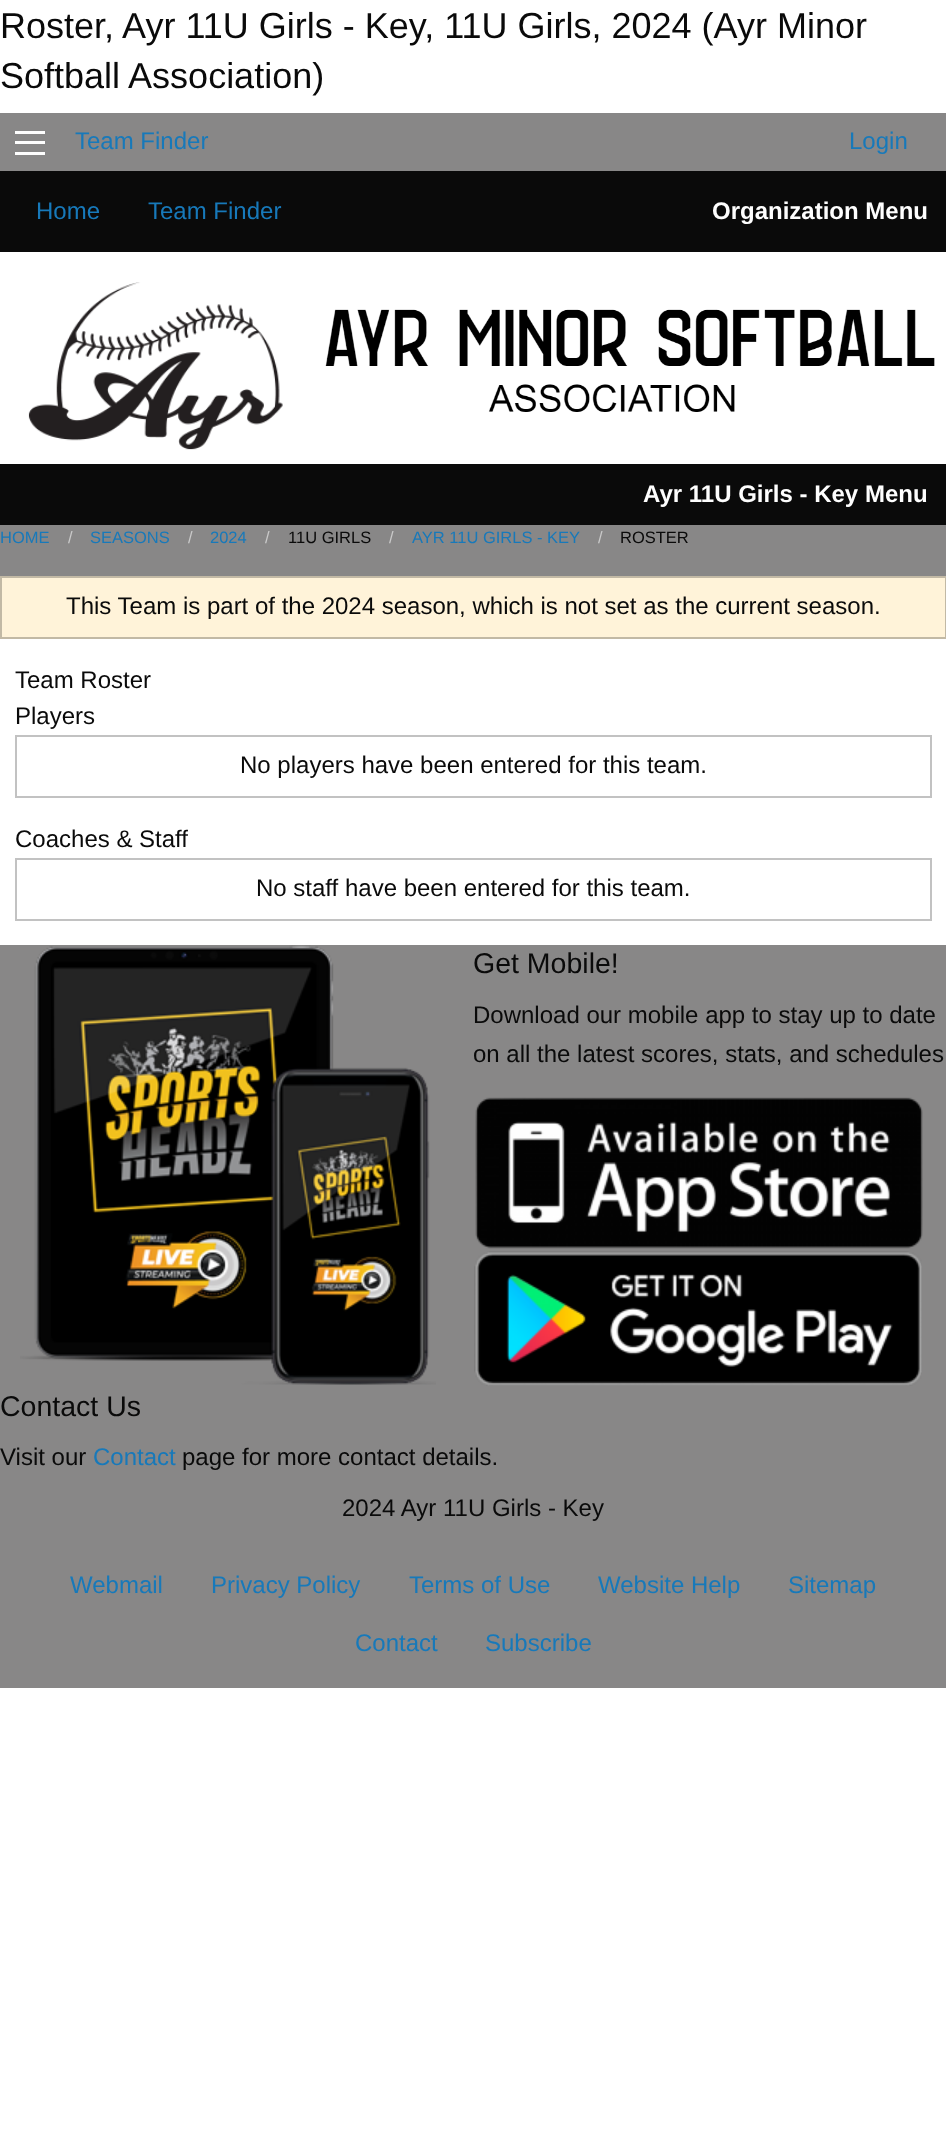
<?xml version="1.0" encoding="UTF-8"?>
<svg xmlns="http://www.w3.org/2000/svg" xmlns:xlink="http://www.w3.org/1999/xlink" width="946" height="2146">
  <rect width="100%" height="100%" fill="#ffffff" />
  <rect y="113" width="946" height="1575" fill="#888787" />
  <rect x="15" y="152" width="30" height="3" fill="#fefefe" />
  <rect x="15" y="141" width="30" height="3" fill="#fefefe" />
  <rect x="15" y="131" width="30" height="3" fill="#fefefe" />
  <rect y="171" width="946" height="81" fill="#0a0a0a" />
  <rect y="252" width="946" height="212" fill="#ffffff" />
  <image x="28" y="282" width="255" height="168" xlink:href="image1.png" />
  <image x="325" y="309" width="610" height="103" xlink:href="image2.png" />
  <rect y="464" width="946" height="61" fill="#0a0a0a" />
  <rect y="639" width="946" height="306" fill="#ffffff" />
  <rect x="1" y="577" width="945" height="61" fill="#fff3d9" stroke="#c2b9a5" stroke-width="2" />
  <rect x="16" y="736" width="915" height="61" fill="none" stroke="#c2c2c2" stroke-width="2" />
  <rect x="16" y="859" width="915" height="61" fill="none" stroke="#c2c2c2" stroke-width="2" />
  <image x="20" y="945" width="416" height="440" xlink:href="image3.png" />
  <image x="475" y="1097" width="448" height="152" xlink:href="image4.png" />
  <image x="474" y="1251" width="448" height="135" xlink:href="image5.png" />
  <text x="0" y="38" style="font-family: Liberation Sans; font-size: 36px; fill: #0a0a0a">Roster, Ayr 11U Girls - Key, 11U Girls, 2024 (Ayr Minor</text>
  <text x="0" y="88" style="font-family: Liberation Sans; font-size: 36px; fill: #0a0a0a">Softball Association)</text>
  <text x="75" y="149" style="font-family: Liberation Sans; font-size: 24px; fill: #1779ba">Team Finder</text>
  <text x="849" y="149" style="font-family: Liberation Sans; font-size: 24px; fill: #1779ba">Login</text>
  <text x="36" y="219" style="font-family: Liberation Sans; font-size: 24px; fill: #1779ba">Home</text>
  <text x="148" y="219" style="font-family: Liberation Sans; font-size: 24px; fill: #1779ba">Team Finder</text>
  <text x="712" y="219" style="font-family: Liberation Sans; font-size: 24px; font-weight: bold; fill: #fefefe">Organization Menu</text>
  <text x="643" y="502" style="font-family: Liberation Sans; font-size: 24px; font-weight: bold; fill: #fefefe">Ayr 11U Girls - Key Menu</text>
  <text x="0" y="543" style="font-family: Liberation Sans; font-size: 16.5px; fill: #1779ba">HOME</text>
  <text x="68" y="543" style="font-family: Liberation Sans; font-size: 16.5px; fill: #cacaca">/</text>
  <text x="90" y="543" style="font-family: Liberation Sans; font-size: 16.5px; fill: #1779ba">SEASONS</text>
  <text x="188" y="543" style="font-family: Liberation Sans; font-size: 16.5px; fill: #cacaca">/</text>
  <text x="210" y="543" style="font-family: Liberation Sans; font-size: 16.5px; fill: #1779ba">2024</text>
  <text x="265" y="543" style="font-family: Liberation Sans; font-size: 16.5px; fill: #cacaca">/</text>
  <text x="288" y="543" style="font-family: Liberation Sans; font-size: 16.5px; fill: #0a0a0a">11U GIRLS</text>
  <text x="389" y="543" style="font-family: Liberation Sans; font-size: 16.5px; fill: #cacaca">/</text>
  <text x="412" y="543" style="font-family: Liberation Sans; font-size: 16.5px; fill: #1779ba">AYR 11U GIRLS - KEY</text>
  <text x="598" y="543" style="font-family: Liberation Sans; font-size: 16.5px; fill: #cacaca">/</text>
  <text x="620" y="543" style="font-family: Liberation Sans; font-size: 16.5px; fill: #0a0a0a">ROSTER</text>
  <text x="66" y="614" style="font-family: Liberation Sans; font-size: 24px; fill: #0a0a0a">This Team is part of the 2024 season, which is not set as the current season.</text>
  <text x="15" y="688" style="font-family: Liberation Sans; font-size: 24px; fill: #0a0a0a">Team Roster</text>
  <text x="15" y="724" style="font-family: Liberation Sans; font-size: 24px; fill: #0a0a0a">Players</text>
  <text x="240" y="773" style="font-family: Liberation Sans; font-size: 24px; fill: #0a0a0a">No players have been entered for this team.</text>
  <text x="15" y="847" style="font-family: Liberation Sans; font-size: 24px; fill: #0a0a0a">Coaches &amp; Staff</text>
  <text x="256" y="896" style="font-family: Liberation Sans; font-size: 24px; fill: #0a0a0a">No staff have been entered for this team.</text>
  <text x="473" y="973" style="font-family: Liberation Sans; font-size: 28.5px; fill: #0a0a0a">Get Mobile!</text>
  <text x="473" y="1023" style="font-family: Liberation Sans; font-size: 24px; fill: #0a0a0a">Download our mobile app to stay up to date</text>
  <text x="473" y="1062" style="font-family: Liberation Sans; font-size: 24px; fill: #0a0a0a">on all the latest scores, stats, and schedules</text>
  <text x="0" y="1416" style="font-family: Liberation Sans; font-size: 28.5px; fill: #0a0a0a">Contact Us</text>
  <text x="0" y="1465" style="font-family: Liberation Sans; font-size: 24px; fill: #0a0a0a">Visit our</text>
  <text x="93" y="1465" style="font-family: Liberation Sans; font-size: 24px; fill: #1779ba">Contact</text>
  <text x="182" y="1465" style="font-family: Liberation Sans; font-size: 24px; fill: #0a0a0a">page for more contact details.</text>
  <text x="342" y="1516" style="font-family: Liberation Sans; font-size: 24px; fill: #0a0a0a">2024 Ayr 11U Girls - Key</text>
  <text x="70" y="1593" style="font-family: Liberation Sans; font-size: 24px; fill: #1779ba">Webmail</text>
  <text x="211" y="1593" style="font-family: Liberation Sans; font-size: 24px; fill: #1779ba">Privacy Policy</text>
  <text x="409" y="1593" style="font-family: Liberation Sans; font-size: 24px; fill: #1779ba">Terms of Use</text>
  <text x="598" y="1593" style="font-family: Liberation Sans; font-size: 24px; fill: #1779ba">Website Help</text>
  <text x="788" y="1593" style="font-family: Liberation Sans; font-size: 24px; fill: #1779ba">Sitemap</text>
  <text x="355" y="1651" style="font-family: Liberation Sans; font-size: 24px; fill: #1779ba">Contact</text>
  <text x="485" y="1651" style="font-family: Liberation Sans; font-size: 24px; fill: #1779ba">Subscribe</text>
</svg>
